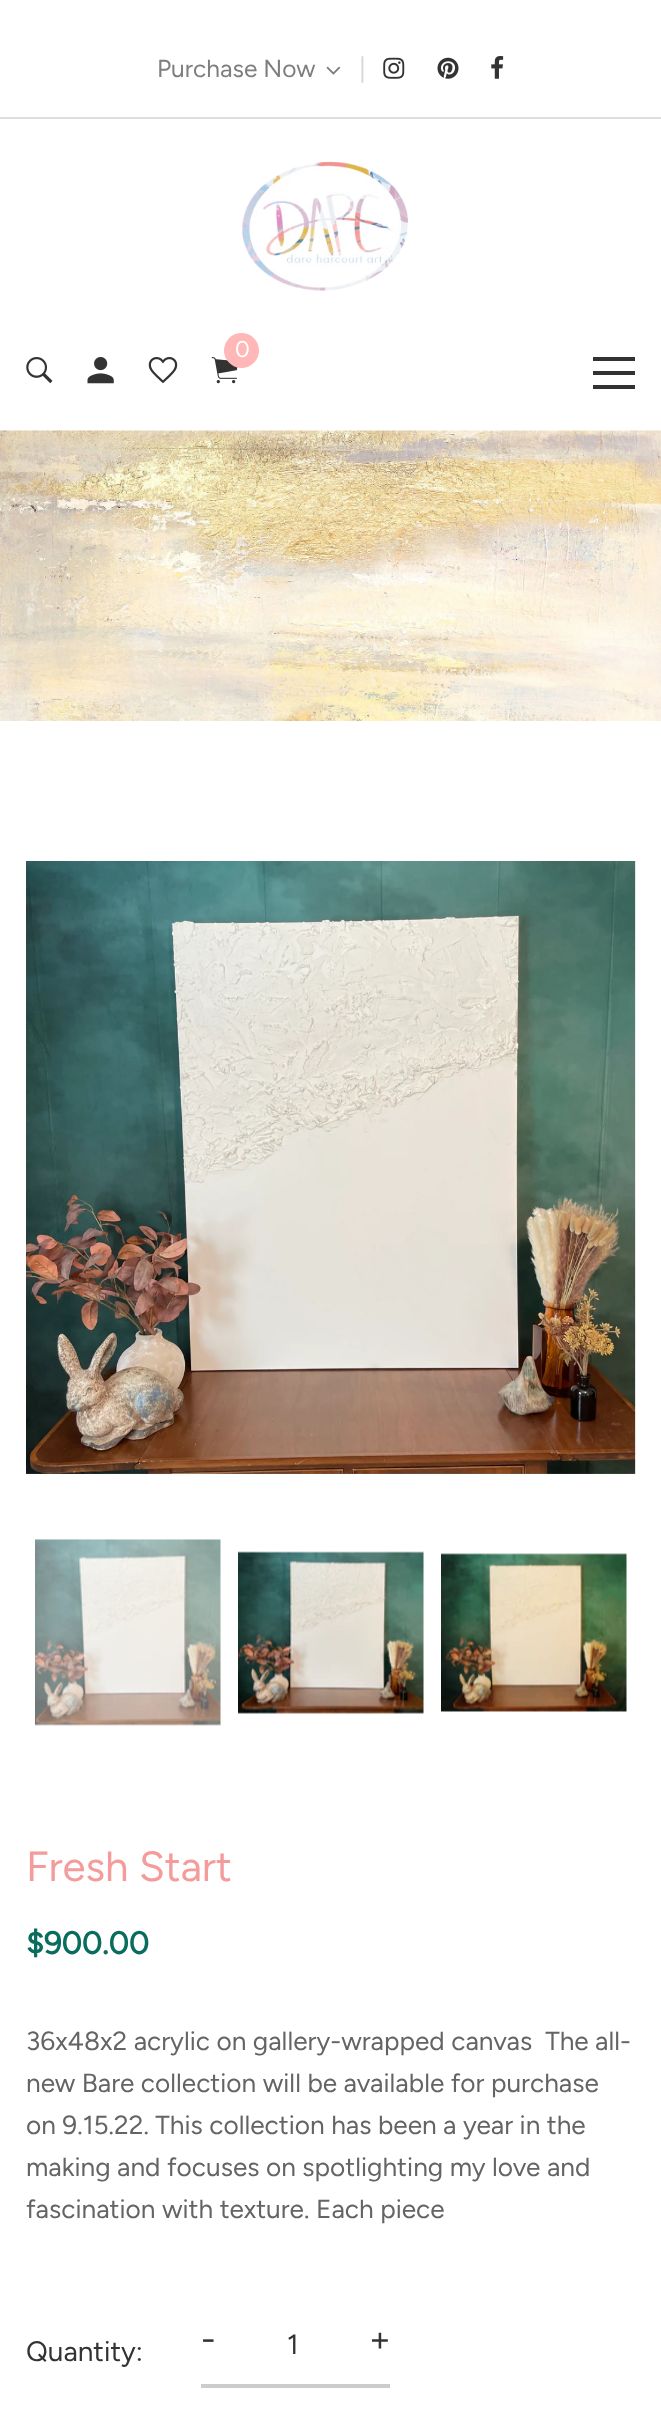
<?xml version="1.0" encoding="UTF-8"?>
<svg xmlns="http://www.w3.org/2000/svg" xmlns:xlink="http://www.w3.org/1999/xlink" width="661" height="2431">
  <rect width="100%" height="100%" fill="#ffffff" />
  <rect y="117" width="661" height="2" fill="#dedede" />
  <image x="326" y="66" width="15" height="9" xlink:href="image1.png" />
  <image x="383" y="57" width="22" height="22" xlink:href="image2.png" />
  <image x="437" y="57" width="22" height="22" xlink:href="image3.png" />
  <image x="491" y="56" width="13" height="23" xlink:href="image4.png" />
  <image x="242" y="161" width="167" height="130" xlink:href="image5.png" />
  <image x="211" y="357" width="27" height="27" xlink:href="image6.png" />
  <circle cx="241.5" cy="350.5" r="17.5" fill="#ffb7b7" />
  <image x="26" y="357" width="27" height="27" xlink:href="image7.png" />
  <image x="87" y="357" width="27" height="27" xlink:href="image8.png" />
  <image x="148" y="357" width="30" height="27" xlink:href="image9.png" />
  <rect x="593" y="371" width="42" height="4" fill="#333333" />
  <rect x="593" y="357" width="42" height="4" fill="#333333" />
  <rect x="593" y="385" width="42" height="4" fill="#333333" />
  <image x="0" y="430" width="661" height="291" xlink:href="image10.png" />
  <image x="26" y="861" width="610" height="613" xlink:href="image11.png" />
  <image x="35" y="1539" width="186" height="187" xlink:href="image12.png" />
  <image x="238" y="1551" width="186" height="163" xlink:href="image13.png" />
  <image x="441" y="1553" width="186" height="159" xlink:href="image14.png" />
  <rect x="201" y="2384" width="189" height="4" fill="#cccccc" />
  <text x="157" y="77" style="font-family: Figtree; font-size: 24.5px; fill: #7e7e7e">Purchase Now</text>
  <text x="359" y="77" style="font-family: Figtree; font-size: 26.25px; fill: #d8d8d8">|</text>
  <text x="235" y="357" style="font-family: Figtree; font-size: 23px; fill: #ffffff">0</text>
  <text x="26" y="1881" style="font-family: Figtree; font-size: 42px; fill: #f49c9c">Fresh Start</text>
  <text x="26" y="1954" style="font-family: Figtree; font-size: 31.5px; font-weight: bold; fill: #096d5e">$900.00</text>
  <text x="26" y="2050" style="font-family: Figtree; font-size: 26.25px; fill: #656363" xml:space="preserve">36x48x2 acrylic on gallery-wrapped canvas  The all-</text>
  <text x="26" y="2092" style="font-family: Figtree; font-size: 26.25px; fill: #656363">new Bare collection will be available for purchase</text>
  <text x="26" y="2134" style="font-family: Figtree; font-size: 26.25px; fill: #656363">on 9.15.22. This collection has been a year in the</text>
  <text x="26" y="2176" style="font-family: Figtree; font-size: 26.25px; fill: #656363">making and focuses on spotlighting my love and</text>
  <text x="26" y="2218" style="font-family: Figtree; font-size: 26.25px; fill: #656363">fascination with texture. Each piece</text>
  <text x="26" y="2361" style="font-family: Figtree; font-size: 28px; fill: #333333">Quantity:</text>
  <text x="201" y="2351" style="font-family: Figtree; font-size: 35px; fill: #333333">-</text>
  <text x="287" y="2354" style="font-family: Figtree; font-size: 28px; fill: #333333">1</text>
  <text x="369" y="2351" style="font-family: Figtree; font-size: 35px; fill: #333333">+</text>
</svg>
